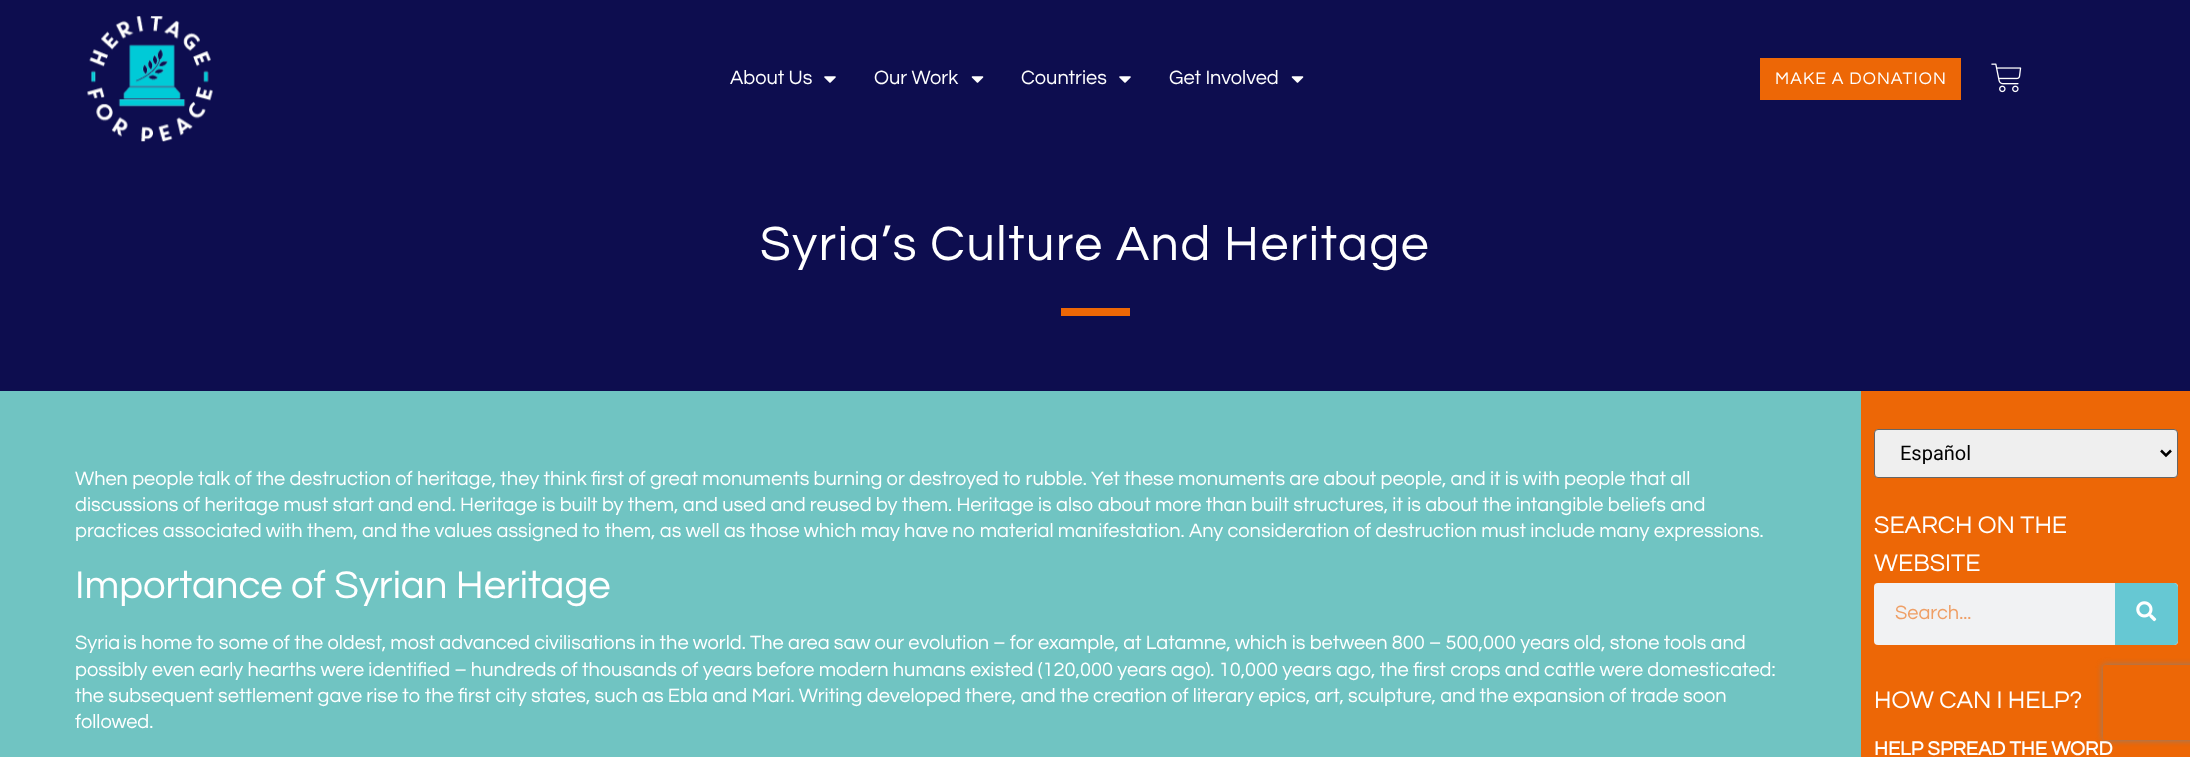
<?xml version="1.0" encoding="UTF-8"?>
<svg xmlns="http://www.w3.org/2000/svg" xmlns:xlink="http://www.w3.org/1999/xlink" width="2190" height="757">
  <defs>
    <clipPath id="clip1"><path d="M 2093 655 h 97 v 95 h -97 z m 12.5 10 h 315 c 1.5 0 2.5 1 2.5 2.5 v 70 c 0 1.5 -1 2.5 -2.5 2.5 h -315 c -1.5 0 -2.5 -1 -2.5 -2.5 v -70 c 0 -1.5 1 -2.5 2.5 -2.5 z" clip-rule="evenodd" /></clipPath>
  </defs>
  <rect width="100%" height="100%" fill="#0d0d4f" />
  <image x="87" y="16" width="126" height="126" xlink:href="image1.png" />
  <image x="824" y="76" width="12" height="7" xlink:href="image2.png" />
  <image x="971" y="76" width="13" height="7" xlink:href="image3.png" />
  <image x="1119" y="76" width="12" height="7" xlink:href="image2.png" />
  <image x="1291" y="76" width="13" height="7" xlink:href="image3.png" />
  <rect x="1760" y="58" width="201" height="42" fill="#ed6706" />
  <image x="1991" y="63" width="31" height="30" xlink:href="image4.png" />
  <rect x="1061" y="308" width="69" height="8" fill="#ed6706" />
  <rect y="391" width="1861" height="366" fill="#70c4c2" />
  <rect x="1861" y="391" width="329" height="366" fill="#ed6706" />
  <rect x="1874.5" y="429.5" width="303" height="48" rx="3.5" fill="#efefef" stroke="#666666" />
  <path d="M 2161 450.5 l 5 5 l 5 -5" fill="none" stroke="#000000" stroke-width="2.5" />
  <rect x="1874" y="583" width="304" height="62" rx="4" fill="#f1f2f3" />
  <path d="M 2115 583 h 59 c 2 0 4 2 4 4 v 54 c 0 2 -2 4 -4 4 h -59 z" fill="#66c8d3" />
  <image x="2136" y="601" width="21" height="21" xlink:href="image5.png" />
  <g clip-path="url(#clip1)">
    <rect x="2103" y="665" width="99" height="75" rx="2.5" fill="#808080" filter="blur(3px)" />
  </g>
  <text x="730" y="84" style="font-family: Questrial; font-size: 20px; fill: #ffffff">About Us</text>
  <text x="874" y="84" style="font-family: Questrial; font-size: 20px; fill: #ffffff">Our Work</text>
  <text x="1021" y="84" style="font-family: Questrial; font-size: 20px; fill: #ffffff">Countries</text>
  <text x="1169" y="84" style="font-family: Questrial; font-size: 20px; fill: #ffffff">Get Involved</text>
  <text x="1775" y="84" style="font-family: Questrial; font-size: 17.5px; letter-spacing: 1.1px; fill: #ffffff">MAKE A DONATION</text>
  <text x="760" y="260" style="font-family: Questrial; font-size: 50px; letter-spacing: 1.6px; fill: #ffffff">Syria’s Culture And Heritage</text>
  <text x="75" y="485" style="font-family: Questrial; font-size: 20px; fill: #ffffff">When people talk of the destruction of heritage, they think first of great monuments burning or destroyed to rubble. Yet these monuments are about people, and it is with people that all</text>
  <text x="75" y="511" style="font-family: Questrial; font-size: 20px; fill: #ffffff">discussions of heritage must start and end. Heritage is built by them, and used and reused by them. Heritage is also about more than built structures, it is about the intangible beliefs and</text>
  <text x="75" y="537" style="font-family: Questrial; font-size: 20px; fill: #ffffff">practices associated with them, and the values assigned to them, as well as those which may have no material manifestation. Any consideration of destruction must include many expressions.</text>
  <text x="75" y="598" style="font-family: Questrial; font-size: 40px; fill: #ffffff">Importance of Syrian Heritage</text>
  <text x="75" y="649" style="font-family: Questrial; font-size: 20px; fill: #ffffff">Syria</text>
  <text x="123" y="649" style="font-family: Questrial; font-size: 20px; fill: #ffffff">is home to some of the oldest, most advanced civilisations in the world. The area saw our evolution – for example, at Latamne, which is between 800 – 500,000 years old, stone tools and</text>
  <text x="75" y="676" style="font-family: Questrial; font-size: 20px; fill: #ffffff">possibly even early hearths were identified – hundreds of thousands of years before modern humans existed (120,000 years ago). 10,000 years ago, the first crops and cattle were domesticated:</text>
  <text x="75" y="702" style="font-family: Questrial; font-size: 20px; fill: #ffffff">the subsequent settlement gave rise to the first city states, such as Ebla and Mari. Writing developed there, and the creation of literary epics, art, sculpture, and the expansion of trade soon</text>
  <text x="75" y="728" style="font-family: Questrial; font-size: 20px; fill: #ffffff">followed.</text>
  <text x="1900" y="460" style="font-family: Roboto; font-size: 20px; fill: #000000">Español</text>
  <text x="1874" y="533" style="font-family: Questrial; font-size: 25px; fill: #ffffff">SEARCH ON THE</text>
  <text x="1874" y="571" style="font-family: Questrial; font-size: 25px; fill: #ffffff">WEBSITE</text>
  <text x="1895" y="619" style="font-family: Questrial; font-size: 20px; fill: #ef9f65">Search...</text>
  <text x="1874" y="708" style="font-family: Questrial; font-size: 25px; fill: #ffffff">HOW CAN I HELP?</text>
  <text x="1874" y="755" style="font-family: Questrial; font-size: 20px; font-weight: bold; fill: #ffffff">HELP SPREAD THE WORD</text>
</svg>
